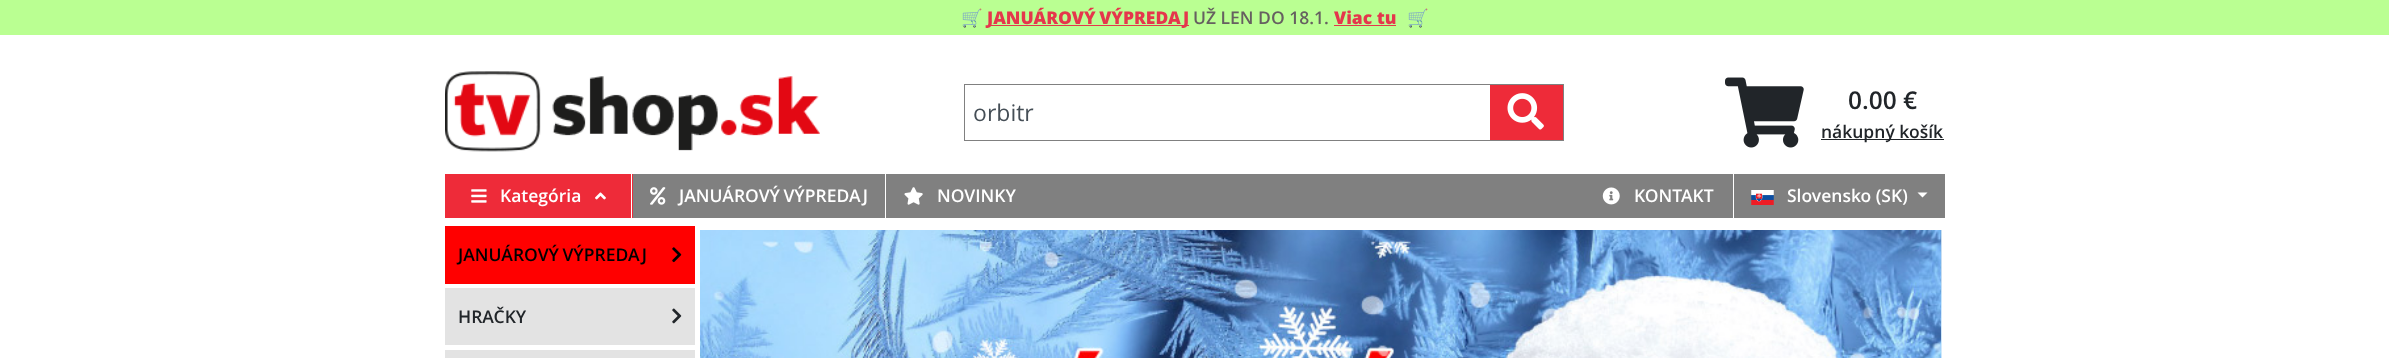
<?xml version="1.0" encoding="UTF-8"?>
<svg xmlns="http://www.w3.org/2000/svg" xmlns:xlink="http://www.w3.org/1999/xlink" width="2389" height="358">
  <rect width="100%" height="100%" fill="#ffffff" />
  <rect width="2389" height="35" fill="#baff92" />
  <rect x="988" y="25" width="201" height="1" fill="#e5364c" />
  <rect x="1334" y="25" width="62" height="1" fill="#e5364c" />
  <image x="445" y="71" width="375" height="81" xlink:href="image1.png" />
  <rect x="964" y="84" width="600" height="1" fill="#808080" />
  <rect x="1563" y="84" width="1" height="57" fill="#808080" />
  <rect x="964" y="140" width="600" height="1" fill="#808080" />
  <rect x="1490" y="85" width="73" height="55" fill="#ee2b39" />
  <image x="1507" y="93" width="37" height="37" xlink:href="image2.png" />
  <rect x="964" y="84" width="1" height="57" fill="#808080" />
  <image x="1725" y="77" width="79" height="71" xlink:href="image3.png" />
  <rect x="1821" y="139" width="123" height="1" fill="#212529" />
  <rect x="633" y="174" width="1312" height="44" fill="#808080" />
  <rect x="445" y="174" width="188" height="44" fill="#ee2b39" />
  <rect x="631" y="174" width="1" height="44" fill="#ffffff" />
  <image x="471" y="189" width="16" height="14" xlink:href="image4.png" />
  <image x="595" y="192" width="11" height="8" xlink:href="image5.png" />
  <rect x="885" y="174" width="1" height="44" fill="#ffffff" />
  <image x="650" y="187" width="16" height="18" xlink:href="image6.png" />
  <image x="904" y="187" width="19" height="18" xlink:href="image7.png" />
  <rect x="1733" y="174" width="1" height="44" fill="#ffffff" />
  <image x="1602" y="187" width="18" height="18" xlink:href="image8.png" />
  <image x="1751" y="190" width="23" height="15" xlink:href="image9.png" />
  <path d="M 1917.5 192.5 h 10 l -5 5 z" fill="#ffffff" />
  <rect x="445" y="226" width="250" height="58" fill="#ff0000" />
  <image x="672" y="247" width="10" height="16" xlink:href="image10.png" />
  <rect x="445" y="288" width="250" height="57" fill="#e3e3e3" />
  <image x="672" y="308" width="10" height="16" xlink:href="image11.png" />
  <rect x="445" y="350" width="250" height="8" fill="#e3e3e3" />
  <image x="700" y="230" width="1242" height="128" xlink:href="image12.png" />
  <image x="1941" y="230" width="1" height="128" xlink:href="image13.png" />
  <text x="961" y="24" style="font-family: Noto Color Emoji; font-size: 17.5px; font-weight: bold; fill: #ffffff">🛒</text>
  <text x="987" y="24" word-spacing="-1" style="font-family: Open Sans; font-size: 17.5px; font-weight: 800; fill: #e5364c">JANUÁROVÝ VÝPREDAJ</text>
  <text x="1193" y="24" style="font-family: Open Sans; font-size: 17.5px; font-weight: 600; fill: #666060">UŽ LEN DO 18.1.</text>
  <text x="1334" y="24" style="font-family: Open Sans; font-size: 17.5px; font-weight: 800; fill: #e5364c">Viac tu</text>
  <text x="1407" y="24" style="font-family: Noto Color Emoji; font-size: 17.5px; font-weight: bold; fill: #ffffff">🛒</text>
  <text x="973" y="121" style="font-family: Open Sans; font-size: 23px; fill: #454e56">orbitr</text>
  <text x="1848" y="109" style="font-family: Open Sans; font-size: 24.5px; font-weight: 600; fill: #212529">0.00 €</text>
  <text x="1821" y="138" style="font-family: Open Sans; font-size: 17.5px; font-weight: 600; fill: #212529">nákupný košík</text>
  <text x="500" y="202" style="font-family: Open Sans; font-size: 17.5px; font-weight: 600; fill: #ffffff">Kategória</text>
  <text x="679" y="202" word-spacing="-1" style="font-family: Open Sans; font-size: 17.5px; font-weight: 600; fill: #ffffff">JANUÁROVÝ VÝPREDAJ</text>
  <text x="937" y="202" style="font-family: Open Sans; font-size: 17.5px; font-weight: 600; fill: #ffffff">NOVINKY</text>
  <text x="1634" y="202" style="font-family: Open Sans; font-size: 17.5px; font-weight: 600; fill: #ffffff">KONTAKT</text>
  <text x="1787" y="202" style="font-family: Open Sans; font-size: 17.5px; font-weight: 600; fill: #ffffff">Slovensko (SK)</text>
  <text x="458" y="261" word-spacing="-1" style="font-family: Open Sans; font-size: 17.5px; font-weight: 600; fill: #000000">JANUÁROVÝ VÝPREDAJ</text>
  <text x="458" y="323" style="font-family: Open Sans; font-size: 17.5px; font-weight: 600; fill: #212529">HRAČKY</text>
</svg>
